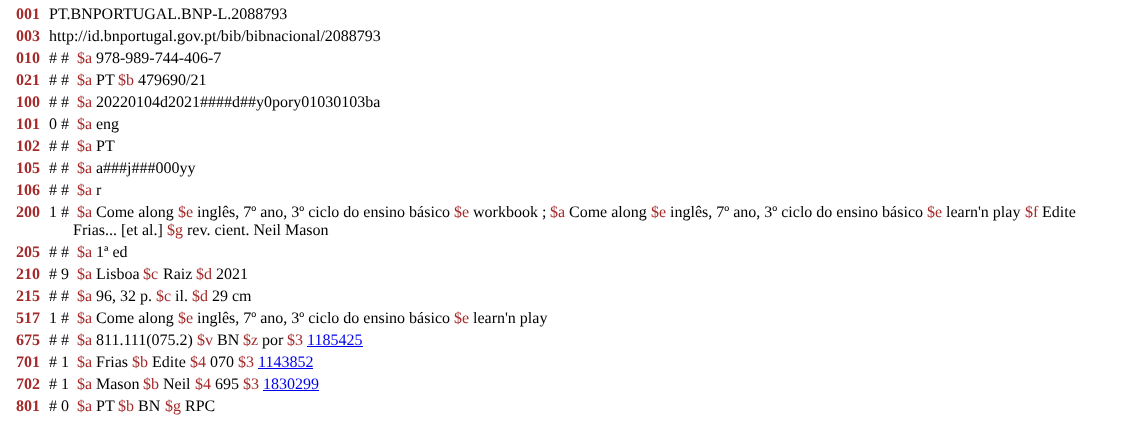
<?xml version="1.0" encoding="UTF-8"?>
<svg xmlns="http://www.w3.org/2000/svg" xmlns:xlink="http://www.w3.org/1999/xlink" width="1128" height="423">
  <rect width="100%" height="100%" fill="#ffffff" />
  <rect x="307" y="346" width="56" height="1" fill="#0000ee" />
  <rect x="258" y="368" width="55" height="1" fill="#0000ee" />
  <rect x="263" y="390" width="56" height="1" fill="#0000ee" />
  <text x="16" y="19" style="font-family: Liberation Serif; font-size: 16px; font-weight: bold; fill: #a52a2a">001</text>
  <text x="49" y="19" style="font-family: Liberation Serif; font-size: 16px; fill: #000000">PT.BNPORTUGAL.BNP-L.2088793</text>
  <text x="16" y="41" style="font-family: Liberation Serif; font-size: 16px; font-weight: bold; fill: #a52a2a">003</text>
  <text x="49" y="41" style="font-family: Liberation Serif; font-size: 16px; fill: #000000">http://id.bnportugal.gov.pt/bib/bibnacional/2088793</text>
  <text x="16" y="63" style="font-family: Liberation Serif; font-size: 16px; font-weight: bold; fill: #a52a2a">010</text>
  <text x="49" y="63" style="font-family: Liberation Serif; font-size: 16px; fill: #000000"># #</text>
  <text x="77" y="63" style="font-family: Liberation Serif; font-size: 16px; fill: #a52a2a">$a</text>
  <text x="96" y="63" style="font-family: Liberation Serif; font-size: 16px; fill: #000000">978-989-744-406-7</text>
  <text x="16" y="85" style="font-family: Liberation Serif; font-size: 16px; font-weight: bold; fill: #a52a2a">021</text>
  <text x="49" y="85" style="font-family: Liberation Serif; font-size: 16px; fill: #000000"># #</text>
  <text x="77" y="85" style="font-family: Liberation Serif; font-size: 16px; fill: #a52a2a">$a</text>
  <text x="96" y="85" style="font-family: Liberation Serif; font-size: 16px; fill: #000000">PT</text>
  <text x="118" y="85" style="font-family: Liberation Serif; font-size: 16px; fill: #a52a2a">$b</text>
  <text x="138" y="85" style="font-family: Liberation Serif; font-size: 16px; fill: #000000">479690/21</text>
  <text x="16" y="107" style="font-family: Liberation Serif; font-size: 16px; font-weight: bold; fill: #a52a2a">100</text>
  <text x="49" y="107" style="font-family: Liberation Serif; font-size: 16px; fill: #000000"># #</text>
  <text x="77" y="107" style="font-family: Liberation Serif; font-size: 16px; fill: #a52a2a">$a</text>
  <text x="96" y="107" style="font-family: Liberation Serif; font-size: 16px; fill: #000000">20220104d2021####d##y0pory01030103ba</text>
  <text x="16" y="129" style="font-family: Liberation Serif; font-size: 16px; font-weight: bold; fill: #a52a2a">101</text>
  <text x="49" y="129" style="font-family: Liberation Serif; font-size: 16px; fill: #000000">0 #</text>
  <text x="77" y="129" style="font-family: Liberation Serif; font-size: 16px; fill: #a52a2a">$a</text>
  <text x="96" y="129" style="font-family: Liberation Serif; font-size: 16px; fill: #000000">eng</text>
  <text x="16" y="151" style="font-family: Liberation Serif; font-size: 16px; font-weight: bold; fill: #a52a2a">102</text>
  <text x="49" y="151" style="font-family: Liberation Serif; font-size: 16px; fill: #000000"># #</text>
  <text x="77" y="151" style="font-family: Liberation Serif; font-size: 16px; fill: #a52a2a">$a</text>
  <text x="96" y="151" style="font-family: Liberation Serif; font-size: 16px; fill: #000000">PT</text>
  <text x="16" y="173" style="font-family: Liberation Serif; font-size: 16px; font-weight: bold; fill: #a52a2a">105</text>
  <text x="49" y="173" style="font-family: Liberation Serif; font-size: 16px; fill: #000000"># #</text>
  <text x="77" y="173" style="font-family: Liberation Serif; font-size: 16px; fill: #a52a2a">$a</text>
  <text x="96" y="173" style="font-family: Liberation Serif; font-size: 16px; fill: #000000">a###j###000yy</text>
  <text x="16" y="195" style="font-family: Liberation Serif; font-size: 16px; font-weight: bold; fill: #a52a2a">106</text>
  <text x="49" y="195" style="font-family: Liberation Serif; font-size: 16px; fill: #000000"># #</text>
  <text x="77" y="195" style="font-family: Liberation Serif; font-size: 16px; fill: #a52a2a">$a</text>
  <text x="96" y="195" style="font-family: Liberation Serif; font-size: 16px; fill: #000000">r</text>
  <text x="16" y="217" style="font-family: Liberation Serif; font-size: 16px; font-weight: bold; fill: #a52a2a">200</text>
  <text x="49" y="217" style="font-family: Liberation Serif; font-size: 16px; fill: #000000">1 #</text>
  <text x="77" y="217" style="font-family: Liberation Serif; font-size: 16px; fill: #a52a2a">$a</text>
  <text x="96" y="217" style="font-family: Liberation Serif; font-size: 16px; fill: #000000">Come along</text>
  <text x="178" y="217" style="font-family: Liberation Serif; font-size: 16px; fill: #a52a2a">$e</text>
  <text x="197" y="217" style="font-family: Liberation Serif; font-size: 16px; fill: #000000">inglês, 7º ano, 3º ciclo do ensino básico</text>
  <text x="454" y="217" style="font-family: Liberation Serif; font-size: 16px; fill: #a52a2a">$e</text>
  <text x="473" y="217" style="font-family: Liberation Serif; font-size: 16px; fill: #000000">workbook ;</text>
  <text x="550" y="217" style="font-family: Liberation Serif; font-size: 16px; fill: #a52a2a">$a</text>
  <text x="569" y="217" style="font-family: Liberation Serif; font-size: 16px; fill: #000000">Come along</text>
  <text x="651" y="217" style="font-family: Liberation Serif; font-size: 16px; fill: #a52a2a">$e</text>
  <text x="670" y="217" style="font-family: Liberation Serif; font-size: 16px; fill: #000000">inglês, 7º ano, 3º ciclo do ensino básico</text>
  <text x="927" y="217" style="font-family: Liberation Serif; font-size: 16px; fill: #a52a2a">$e</text>
  <text x="946" y="217" style="font-family: Liberation Serif; font-size: 16px; fill: #000000">learn'n play</text>
  <text x="1025" y="217" style="font-family: Liberation Serif; font-size: 16px; fill: #a52a2a">$f</text>
  <text x="1042" y="217" style="font-family: Liberation Serif; font-size: 16px; fill: #000000">Edite</text>
  <text x="73" y="235" style="font-family: Liberation Serif; font-size: 16px; fill: #000000">Frias... [et al.]</text>
  <text x="167" y="235" style="font-family: Liberation Serif; font-size: 16px; fill: #a52a2a">$g</text>
  <text x="187" y="235" style="font-family: Liberation Serif; font-size: 16px; fill: #000000">rev. cient. Neil Mason</text>
  <text x="16" y="257" style="font-family: Liberation Serif; font-size: 16px; font-weight: bold; fill: #a52a2a">205</text>
  <text x="49" y="257" style="font-family: Liberation Serif; font-size: 16px; fill: #000000"># #</text>
  <text x="77" y="257" style="font-family: Liberation Serif; font-size: 16px; fill: #a52a2a">$a</text>
  <text x="96" y="257" style="font-family: Liberation Serif; font-size: 16px; fill: #000000">1ª ed</text>
  <text x="16" y="279" style="font-family: Liberation Serif; font-size: 16px; font-weight: bold; fill: #a52a2a">210</text>
  <text x="49" y="279" style="font-family: Liberation Serif; font-size: 16px; fill: #000000"># 9</text>
  <text x="77" y="279" style="font-family: Liberation Serif; font-size: 16px; fill: #a52a2a">$a</text>
  <text x="96" y="279" style="font-family: Liberation Serif; font-size: 16px; fill: #000000">Lisboa</text>
  <text x="143" y="279" style="font-family: Liberation Serif; font-size: 16px; fill: #a52a2a">$c</text>
  <text x="163" y="279" style="font-family: Liberation Serif; font-size: 16px; fill: #000000">Raiz</text>
  <text x="196" y="279" style="font-family: Liberation Serif; font-size: 16px; fill: #a52a2a">$d</text>
  <text x="216" y="279" style="font-family: Liberation Serif; font-size: 16px; fill: #000000">2021</text>
  <text x="16" y="301" style="font-family: Liberation Serif; font-size: 16px; font-weight: bold; fill: #a52a2a">215</text>
  <text x="49" y="301" style="font-family: Liberation Serif; font-size: 16px; fill: #000000"># #</text>
  <text x="77" y="301" style="font-family: Liberation Serif; font-size: 16px; fill: #a52a2a">$a</text>
  <text x="96" y="301" style="font-family: Liberation Serif; font-size: 16px; fill: #000000">96, 32 p.</text>
  <text x="156" y="301" style="font-family: Liberation Serif; font-size: 16px; fill: #a52a2a">$c</text>
  <text x="175" y="301" style="font-family: Liberation Serif; font-size: 16px; fill: #000000">il.</text>
  <text x="192" y="301" style="font-family: Liberation Serif; font-size: 16px; fill: #a52a2a">$d</text>
  <text x="212" y="301" style="font-family: Liberation Serif; font-size: 16px; fill: #000000">29 cm</text>
  <text x="16" y="323" style="font-family: Liberation Serif; font-size: 16px; font-weight: bold; fill: #a52a2a">517</text>
  <text x="49" y="323" style="font-family: Liberation Serif; font-size: 16px; fill: #000000">1 #</text>
  <text x="77" y="323" style="font-family: Liberation Serif; font-size: 16px; fill: #a52a2a">$a</text>
  <text x="96" y="323" style="font-family: Liberation Serif; font-size: 16px; fill: #000000">Come along</text>
  <text x="178" y="323" style="font-family: Liberation Serif; font-size: 16px; fill: #a52a2a">$e</text>
  <text x="197" y="323" style="font-family: Liberation Serif; font-size: 16px; fill: #000000">inglês, 7º ano, 3º ciclo do ensino básico</text>
  <text x="454" y="323" style="font-family: Liberation Serif; font-size: 16px; fill: #a52a2a">$e</text>
  <text x="473" y="323" style="font-family: Liberation Serif; font-size: 16px; fill: #000000">learn'n play</text>
  <text x="16" y="345" style="font-family: Liberation Serif; font-size: 16px; font-weight: bold; fill: #a52a2a">675</text>
  <text x="49" y="345" style="font-family: Liberation Serif; font-size: 16px; fill: #000000"># #</text>
  <text x="77" y="345" style="font-family: Liberation Serif; font-size: 16px; fill: #a52a2a">$a</text>
  <text x="96" y="345" style="font-family: Liberation Serif; font-size: 16px; fill: #000000">811.111(075.2)</text>
  <text x="197" y="345" style="font-family: Liberation Serif; font-size: 16px; fill: #a52a2a">$v</text>
  <text x="217" y="345" style="font-family: Liberation Serif; font-size: 16px; fill: #000000">BN</text>
  <text x="243" y="345" style="font-family: Liberation Serif; font-size: 16px; fill: #a52a2a">$z</text>
  <text x="262" y="345" style="font-family: Liberation Serif; font-size: 16px; fill: #000000">por</text>
  <text x="287" y="345" style="font-family: Liberation Serif; font-size: 16px; fill: #a52a2a">$3</text>
  <text x="307" y="345" style="font-family: Liberation Serif; font-size: 16px; fill: #0000ee">1185425</text>
  <text x="16" y="367" style="font-family: Liberation Serif; font-size: 16px; font-weight: bold; fill: #a52a2a">701</text>
  <text x="49" y="367" style="font-family: Liberation Serif; font-size: 16px; fill: #000000"># 1</text>
  <text x="77" y="367" style="font-family: Liberation Serif; font-size: 16px; fill: #a52a2a">$a</text>
  <text x="96" y="367" style="font-family: Liberation Serif; font-size: 16px; fill: #000000">Frias</text>
  <text x="132" y="367" style="font-family: Liberation Serif; font-size: 16px; fill: #a52a2a">$b</text>
  <text x="152" y="367" style="font-family: Liberation Serif; font-size: 16px; fill: #000000">Edite</text>
  <text x="190" y="367" style="font-family: Liberation Serif; font-size: 16px; fill: #a52a2a">$4</text>
  <text x="210" y="367" style="font-family: Liberation Serif; font-size: 16px; fill: #000000">070</text>
  <text x="238" y="367" style="font-family: Liberation Serif; font-size: 16px; fill: #a52a2a">$3</text>
  <text x="258" y="367" style="font-family: Liberation Serif; font-size: 16px; fill: #0000ee">1143852</text>
  <text x="16" y="389" style="font-family: Liberation Serif; font-size: 16px; font-weight: bold; fill: #a52a2a">702</text>
  <text x="49" y="389" style="font-family: Liberation Serif; font-size: 16px; fill: #000000"># 1</text>
  <text x="77" y="389" style="font-family: Liberation Serif; font-size: 16px; fill: #a52a2a">$a</text>
  <text x="96" y="389" style="font-family: Liberation Serif; font-size: 16px; fill: #000000">Mason</text>
  <text x="143" y="389" style="font-family: Liberation Serif; font-size: 16px; fill: #a52a2a">$b</text>
  <text x="163" y="389" style="font-family: Liberation Serif; font-size: 16px; fill: #000000">Neil</text>
  <text x="195" y="389" style="font-family: Liberation Serif; font-size: 16px; fill: #a52a2a">$4</text>
  <text x="215" y="389" style="font-family: Liberation Serif; font-size: 16px; fill: #000000">695</text>
  <text x="243" y="389" style="font-family: Liberation Serif; font-size: 16px; fill: #a52a2a">$3</text>
  <text x="263" y="389" style="font-family: Liberation Serif; font-size: 16px; fill: #0000ee">1830299</text>
  <text x="16" y="411" style="font-family: Liberation Serif; font-size: 16px; font-weight: bold; fill: #a52a2a">801</text>
  <text x="49" y="411" style="font-family: Liberation Serif; font-size: 16px; fill: #000000"># 0</text>
  <text x="77" y="411" style="font-family: Liberation Serif; font-size: 16px; fill: #a52a2a">$a</text>
  <text x="96" y="411" style="font-family: Liberation Serif; font-size: 16px; fill: #000000">PT</text>
  <text x="118" y="411" style="font-family: Liberation Serif; font-size: 16px; fill: #a52a2a">$b</text>
  <text x="138" y="411" style="font-family: Liberation Serif; font-size: 16px; fill: #000000">BN</text>
  <text x="165" y="411" style="font-family: Liberation Serif; font-size: 16px; fill: #a52a2a">$g</text>
  <text x="185" y="411" style="font-family: Liberation Serif; font-size: 16px; fill: #000000">RPC</text>
</svg>
